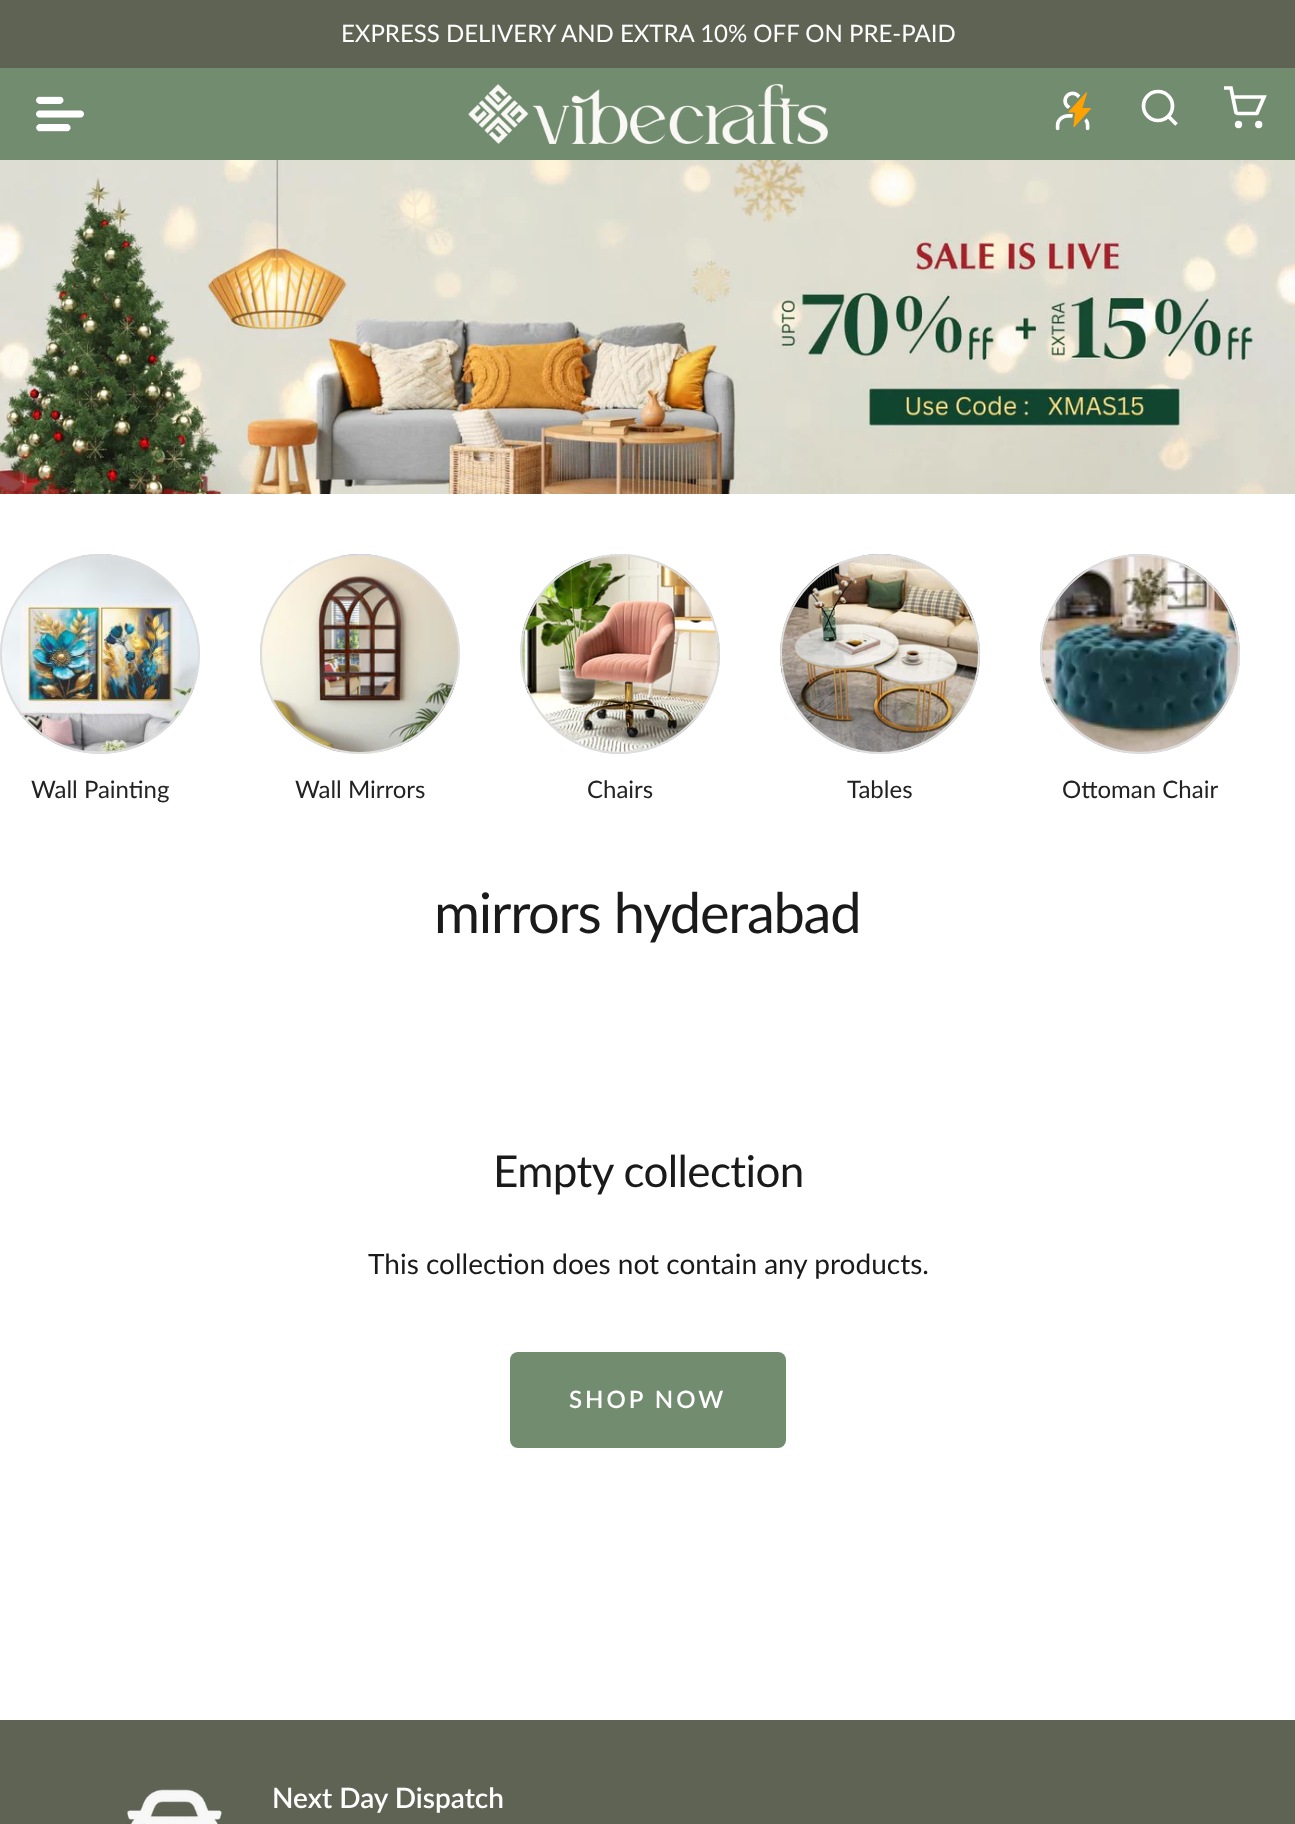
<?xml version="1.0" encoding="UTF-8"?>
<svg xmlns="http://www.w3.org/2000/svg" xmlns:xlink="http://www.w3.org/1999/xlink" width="1295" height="1824">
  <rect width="100%" height="100%" fill="#ffffff" />
  <rect width="1295" height="68" fill="#5f6354" />
  <rect y="68" width="1295" height="92" fill="#728c70" />
  <image x="36" y="96" width="48" height="36" xlink:href="image1.png" />
  <image x="468" y="84" width="360" height="60" xlink:href="image2.png" />
  <image x="1055" y="91" width="36" height="40" xlink:href="image3.png" />
  <circle cx="1158" cy="106" r="14.5" fill="none" stroke="#ffffff" stroke-width="3.7" />
  <path d="M 1176.5 124.5 l -8 -8" fill="none" stroke="#ffffff" stroke-width="3.7" />
  <path d="M 1224 88 h 7 l 5 24.5 c 0.5 0.5 1 1 2 1 h 17.5 c 1 0 2 -0.5 2 -1.5 l 6.5 -15 h -31" fill="none" stroke="#ffffff" stroke-width="3.7" />
  <circle cx="1238.5" cy="124.5" r="1.8" fill="none" stroke="#ffffff" stroke-width="3.7" />
  <circle cx="1258.7" cy="124.5" r="1.8" fill="none" stroke="#ffffff" stroke-width="3.7" />
  <image x="0" y="160" width="1295" height="334" xlink:href="image4.png" />
  <image x="0" y="554" width="200" height="200" xlink:href="image5.png" />
  <circle cx="100" cy="654" r="99" fill="none" stroke="#dddddd" stroke-width="2" />
  <image x="260" y="554" width="200" height="200" xlink:href="image6.png" />
  <circle cx="360" cy="654" r="99" fill="none" stroke="#dddddd" stroke-width="2" />
  <image x="520" y="554" width="200" height="200" xlink:href="image7.png" />
  <circle cx="620" cy="654" r="99" fill="none" stroke="#dddddd" stroke-width="2" />
  <image x="780" y="554" width="200" height="200" xlink:href="image8.png" />
  <circle cx="880" cy="654" r="99" fill="none" stroke="#dddddd" stroke-width="2" />
  <image x="1040" y="554" width="200" height="200" xlink:href="image9.png" />
  <circle cx="1140" cy="654" r="99" fill="none" stroke="#dddddd" stroke-width="2" />
  <rect x="510" y="1352" width="276" height="96" rx="8" fill="#718c6f" />
  <rect y="1720" width="1295" height="104" fill="#5f6354" />
  <image x="127" y="1789" width="95" height="35" xlink:href="image10.png" />
  <text x="341" y="42" style="font-family: Lato; font-size: 24px; fill: #ffffff">EXPRESS DELIVERY AND EXTRA 10% OFF ON PRE-PAID</text>
  <text x="31" y="798" style="font-family: Lato; font-size: 24px; fill: #222222">Wall Painting</text>
  <text x="295" y="798" style="font-family: Lato; font-size: 24px; fill: #222222">Wall Mirrors</text>
  <text x="587" y="798" style="font-family: Lato; font-size: 24px; fill: #222222">Chairs</text>
  <text x="847" y="798" style="font-family: Lato; font-size: 24px; fill: #222222">Tables</text>
  <text x="1062" y="798" style="font-family: Lato; font-size: 24px; fill: #222222">Ottoman Chair</text>
  <text x="434" y="933" style="font-family: Lato; font-size: 56px; letter-spacing: -1.25px; fill: #1a1a1a">mirrors hyderabad</text>
  <text x="493" y="1187" style="font-family: Lato; font-size: 44px; letter-spacing: -0.6px; fill: #1a1a1a">Empty collection</text>
  <text x="368" y="1274" style="font-family: Lato; font-size: 28px; fill: #1a1a1a">This collection does not contain any products.</text>
  <text x="569" y="1408" style="font-family: Lato; font-size: 24px; font-weight: 600; letter-spacing: 3px; fill: #ffffff">SHOP NOW</text>
  <text x="272" y="1808" style="font-family: Lato; font-size: 28px; font-weight: 600; fill: #ffffff">Next Day Dispatch</text>
</svg>
